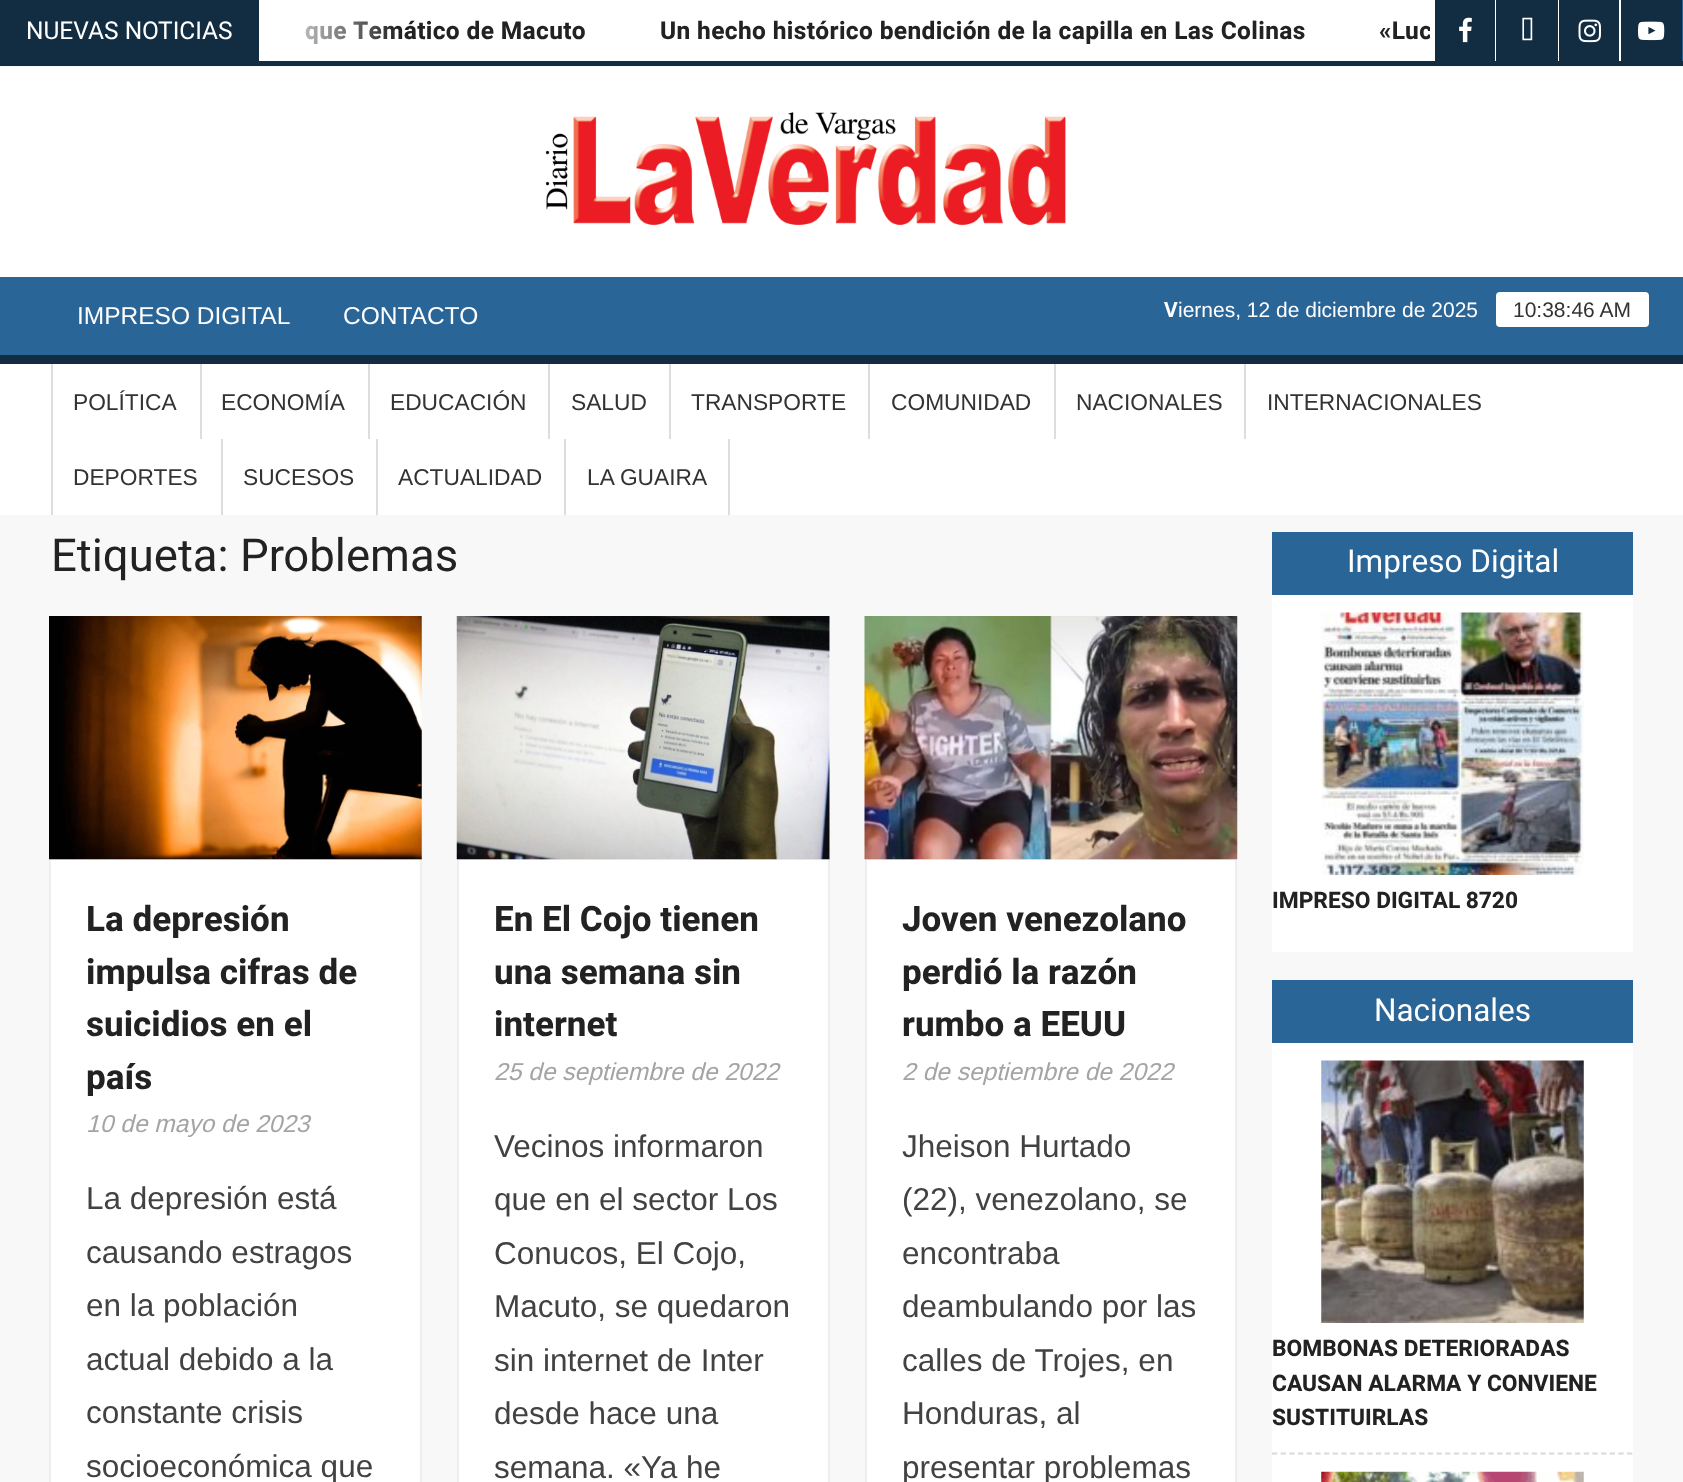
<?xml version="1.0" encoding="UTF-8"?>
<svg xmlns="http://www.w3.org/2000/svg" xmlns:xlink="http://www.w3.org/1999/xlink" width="1683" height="1482">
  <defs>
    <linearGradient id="g1" gradientUnits="userSpaceOnUse" x1="259" y1="31" x2="399" y2="31"><stop offset="0" stop-color="#ffffff" /><stop offset="1" stop-color="#ffffff" stop-opacity="0" /></linearGradient>
    <clipPath id="clip1"><rect width="1430" height="61" /></clipPath>
  </defs>
  <rect width="100%" height="100%" fill="#f8f8f8" />
  <rect x="260" width="1175" height="61" fill="#ffffff" />
  <rect width="259" height="61" fill="#122c42" />
  <rect x="1682" width="1" height="61" fill="#2a6598" />
  <rect x="1435" width="60" height="61" fill="#122c42" />
  <image x="1459" y="17" width="13" height="26" xlink:href="image1.png" />
  <rect x="1495" width="1" height="61" fill="#ffffff" />
  <rect x="1496" width="62" height="61" fill="#122c42" />
  <image x="1522" y="17" width="11" height="24" xlink:href="image2.png" />
  <rect x="1558" width="1" height="61" fill="#ffffff" />
  <rect x="1559" width="60" height="61" fill="#122c42" />
  <image x="1578" y="19" width="23" height="24" xlink:href="image3.png" />
  <rect x="1619" width="2" height="61" fill="#ffffff" />
  <rect x="1621" width="61" height="61" fill="#122c42" />
  <image x="1638" y="21" width="27" height="20" xlink:href="image4.png" />
  <rect y="61" width="1683" height="5" fill="#122c42" />
  <rect y="67" width="1683" height="210" fill="#ffffff" />
  <image x="545" y="112" width="521" height="114" xlink:href="image5.png" />
  <rect y="355" width="1683" height="9" fill="#122c42" />
  <rect y="277" width="1683" height="78" fill="#2a6598" />
  <rect x="1496" y="292" width="153" height="35" rx="4" fill="#ffffff" />
  <rect y="364" width="1683" height="151" fill="#ffffff" />
  <rect x="51" y="364" width="2" height="151" fill="#dddddd" />
  <rect x="200" y="364" width="2" height="75" fill="#dddddd" />
  <rect x="368" y="364" width="2" height="75" fill="#dddddd" />
  <rect x="548" y="364" width="2" height="75" fill="#dddddd" />
  <rect x="669" y="364" width="2" height="75" fill="#dddddd" />
  <rect x="868" y="364" width="2" height="75" fill="#dddddd" />
  <rect x="1054" y="364" width="2" height="75" fill="#dddddd" />
  <rect x="1244" y="364" width="2" height="75" fill="#dddddd" />
  <rect x="221" y="439" width="2" height="76" fill="#dddddd" />
  <rect x="376" y="439" width="2" height="76" fill="#dddddd" />
  <rect x="728" y="439" width="2" height="76" fill="#dddddd" />
  <rect x="564" y="439" width="2" height="76" fill="#dddddd" />
  <rect x="50" y="859" width="371" height="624" fill="#ffffff" stroke="#eeeeee" stroke-width="2" />
  <image x="49" y="616" width="373" height="244" xlink:href="image6.png" />
  <rect x="458" y="859" width="371" height="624" fill="#ffffff" stroke="#eeeeee" stroke-width="2" />
  <rect x="829" y="616" width="1" height="243" fill="#ffffff" />
  <image x="456" y="616" width="374" height="244" xlink:href="image7.png" />
  <rect x="866" y="859" width="370" height="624" fill="#ffffff" stroke="#eeeeee" stroke-width="2" />
  <image x="864" y="616" width="374" height="244" xlink:href="image8.png" />
  <rect x="1272" y="595" width="361" height="357" fill="#ffffff" />
  <rect x="1272" y="532" width="361" height="63" fill="#2a6598" />
  <image x="1321" y="612" width="263" height="263" xlink:href="image9.png" />
  <rect x="1272" y="1043" width="361" height="439" fill="#ffffff" />
  <rect x="1272" y="980" width="361" height="63" fill="#2a6598" />
  <path d="M 1272 1453.5 h 361" fill="none" stroke="#d9d9d9" stroke-width="1.8" stroke-dasharray="5.25 3.41" />
  <image x="1321" y="1060" width="263" height="263" xlink:href="image10.png" />
  <image x="1321" y="1471" width="263" height="11" xlink:href="image11.png" />
  <text x="26" y="39" style="font-family: Heebo; font-size: 24.5px; fill: #ffffff">NUEVAS NOTICIAS</text>
  <text x="305" y="39" style="font-family: Heebo; font-size: 24.5px; font-weight: bold; letter-spacing: 0.35px; fill: #222222">que Temático de Macuto</text>
  <rect x="259" width="137" height="61" fill="url(#g1)" />
  <text x="660" y="39" style="font-family: Heebo; font-size: 24.5px; font-weight: bold; letter-spacing: 0.35px; fill: #222222">Un hecho histórico bendición de la capilla en Las Colinas</text>
  <g clip-path="url(#clip1)">
    <text x="1379" y="39" style="font-family: Heebo; font-size: 24.5px; font-weight: bold; letter-spacing: 0.35px; fill: #222222">«Luc</text>
  </g>
  <text x="77" y="324" style="font-family: Arimo; font-size: 24.5px; fill: #ffffff">IMPRESO DIGITAL</text>
  <text x="343" y="324" style="font-family: Arimo; font-size: 24.5px; fill: #ffffff">CONTACTO</text>
  <text x="1164" y="317" style="font-family: Noto Sans; font-size: 21px; font-weight: bold; fill: #ffffff">V</text>
  <text x="1178" y="317" style="font-family: Arimo; font-size: 21px; fill: #ffffff">iernes, 12 de diciembre de 2025</text>
  <text x="1513" y="317" style="font-family: Arimo; font-size: 21px; fill: #333333">10:38:46 AM</text>
  <text x="73" y="410" style="font-family: Arimo; font-size: 22.75px; fill: #333333">POLÍTICA</text>
  <text x="221" y="410" style="font-family: Arimo; font-size: 22.75px; fill: #333333">ECONOMÍA</text>
  <text x="390" y="410" style="font-family: Arimo; font-size: 22.75px; fill: #333333">EDUCACIÓN</text>
  <text x="571" y="410" style="font-family: Arimo; font-size: 22.75px; fill: #333333">SALUD</text>
  <text x="691" y="410" style="font-family: Arimo; font-size: 22.75px; fill: #333333">TRANSPORTE</text>
  <text x="891" y="410" style="font-family: Arimo; font-size: 22.75px; fill: #333333">COMUNIDAD</text>
  <text x="1076" y="410" style="font-family: Arimo; font-size: 22.75px; fill: #333333">NACIONALES</text>
  <text x="1267" y="410" style="font-family: Arimo; font-size: 22.75px; fill: #333333">INTERNACIONALES</text>
  <text x="73" y="485" style="font-family: Arimo; font-size: 22.75px; fill: #333333">DEPORTES</text>
  <text x="243" y="485" style="font-family: Arimo; font-size: 22.75px; fill: #333333">SUCESOS</text>
  <text x="398" y="485" style="font-family: Arimo; font-size: 22.75px; fill: #333333">ACTUALIDAD</text>
  <text x="587" y="485" style="font-family: Arimo; font-size: 22.75px; fill: #333333">LA GUAIRA</text>
  <text x="51" y="571" style="font-family: Heebo; font-size: 45.5px; fill: #222222">Etiqueta: Problemas</text>
  <text x="86" y="931" style="font-family: Heebo; font-size: 35px; font-weight: bold; fill: #222222">La depresión</text>
  <text x="86" y="984" style="font-family: Heebo; font-size: 35px; font-weight: bold; fill: #222222">impulsa cifras de</text>
  <text x="86" y="1036" style="font-family: Heebo; font-size: 35px; font-weight: bold; fill: #222222">suicidios en el</text>
  <text x="86" y="1089" style="font-family: Heebo; font-size: 35px; font-weight: bold; fill: #222222">país</text>
  <text x="86" y="1132" style="font-family: Arimo; font-size: 24.5px; font-style: italic; fill: #a4a4a4">10 de mayo de 2023</text>
  <text x="86" y="1209" style="font-family: Arimo; font-size: 31.5px; fill: #424242">La depresión está</text>
  <text x="86" y="1263" style="font-family: Arimo; font-size: 31.5px; fill: #424242">causando estragos</text>
  <text x="86" y="1316" style="font-family: Arimo; font-size: 31.5px; fill: #424242">en la población</text>
  <text x="86" y="1370" style="font-family: Arimo; font-size: 31.5px; fill: #424242">actual debido a la</text>
  <text x="86" y="1423" style="font-family: Arimo; font-size: 31.5px; fill: #424242">constante crisis</text>
  <text x="86" y="1477" style="font-family: Arimo; font-size: 31.5px; fill: #424242">socioeconómica que</text>
  <text x="494" y="931" style="font-family: Heebo; font-size: 35px; font-weight: bold; fill: #222222">En El Cojo tienen</text>
  <text x="494" y="984" style="font-family: Heebo; font-size: 35px; font-weight: bold; fill: #222222">una semana sin</text>
  <text x="494" y="1036" style="font-family: Heebo; font-size: 35px; font-weight: bold; fill: #222222">internet</text>
  <text x="494" y="1080" style="font-family: Arimo; font-size: 24.5px; font-style: italic; fill: #a4a4a4">25 de septiembre de 2022</text>
  <text x="494" y="1157" style="font-family: Arimo; font-size: 31.5px; fill: #424242">Vecinos informaron</text>
  <text x="494" y="1210" style="font-family: Arimo; font-size: 31.5px; fill: #424242">que en el sector Los</text>
  <text x="494" y="1264" style="font-family: Arimo; font-size: 31.5px; fill: #424242">Conucos, El Cojo,</text>
  <text x="494" y="1317" style="font-family: Arimo; font-size: 31.5px; fill: #424242">Macuto, se quedaron</text>
  <text x="494" y="1371" style="font-family: Arimo; font-size: 31.5px; fill: #424242">sin internet de Inter</text>
  <text x="494" y="1424" style="font-family: Arimo; font-size: 31.5px; fill: #424242">desde hace una</text>
  <text x="494" y="1478" style="font-family: Arimo; font-size: 31.5px; fill: #424242">semana. «Ya he</text>
  <text x="902" y="931" style="font-family: Heebo; font-size: 35px; font-weight: bold; fill: #222222">Joven venezolano</text>
  <text x="902" y="984" style="font-family: Heebo; font-size: 35px; font-weight: bold; fill: #222222">perdió la razón</text>
  <text x="902" y="1036" style="font-family: Heebo; font-size: 35px; font-weight: bold; fill: #222222">rumbo a EEUU</text>
  <text x="902" y="1080" style="font-family: Arimo; font-size: 24.5px; font-style: italic; fill: #a4a4a4">2 de septiembre de 2022</text>
  <text x="902" y="1157" style="font-family: Arimo; font-size: 31.5px; fill: #424242">Jheison Hurtado</text>
  <text x="902" y="1210" style="font-family: Arimo; font-size: 31.5px; fill: #424242">(22), venezolano, se</text>
  <text x="902" y="1264" style="font-family: Arimo; font-size: 31.5px; fill: #424242">encontraba</text>
  <text x="902" y="1317" style="font-family: Arimo; font-size: 31.5px; fill: #424242">deambulando por las</text>
  <text x="902" y="1371" style="font-family: Arimo; font-size: 31.5px; fill: #424242">calles de Trojes, en</text>
  <text x="902" y="1424" style="font-family: Arimo; font-size: 31.5px; fill: #424242">Honduras, al</text>
  <text x="902" y="1478" style="font-family: Arimo; font-size: 31.5px; fill: #424242">presentar problemas</text>
  <text x="1347" y="572" style="font-family: Heebo; font-size: 31.5px; fill: #ffffff">Impreso Digital</text>
  <text x="1272" y="908" style="font-family: Heebo; font-size: 22.75px; font-weight: bold; fill: #222222">IMPRESO DIGITAL 8720</text>
  <text x="1374" y="1021" style="font-family: Heebo; font-size: 31.5px; fill: #ffffff">Nacionales</text>
  <text x="1272" y="1356" style="font-family: Heebo; font-size: 22.75px; font-weight: bold; fill: #222222">BOMBONAS DETERIORADAS</text>
  <text x="1272" y="1391" style="font-family: Heebo; font-size: 22.75px; font-weight: bold; fill: #222222">CAUSAN ALARMA Y CONVIENE</text>
  <text x="1272" y="1425" style="font-family: Heebo; font-size: 22.75px; font-weight: bold; fill: #222222">SUSTITUIRLAS</text>
</svg>
